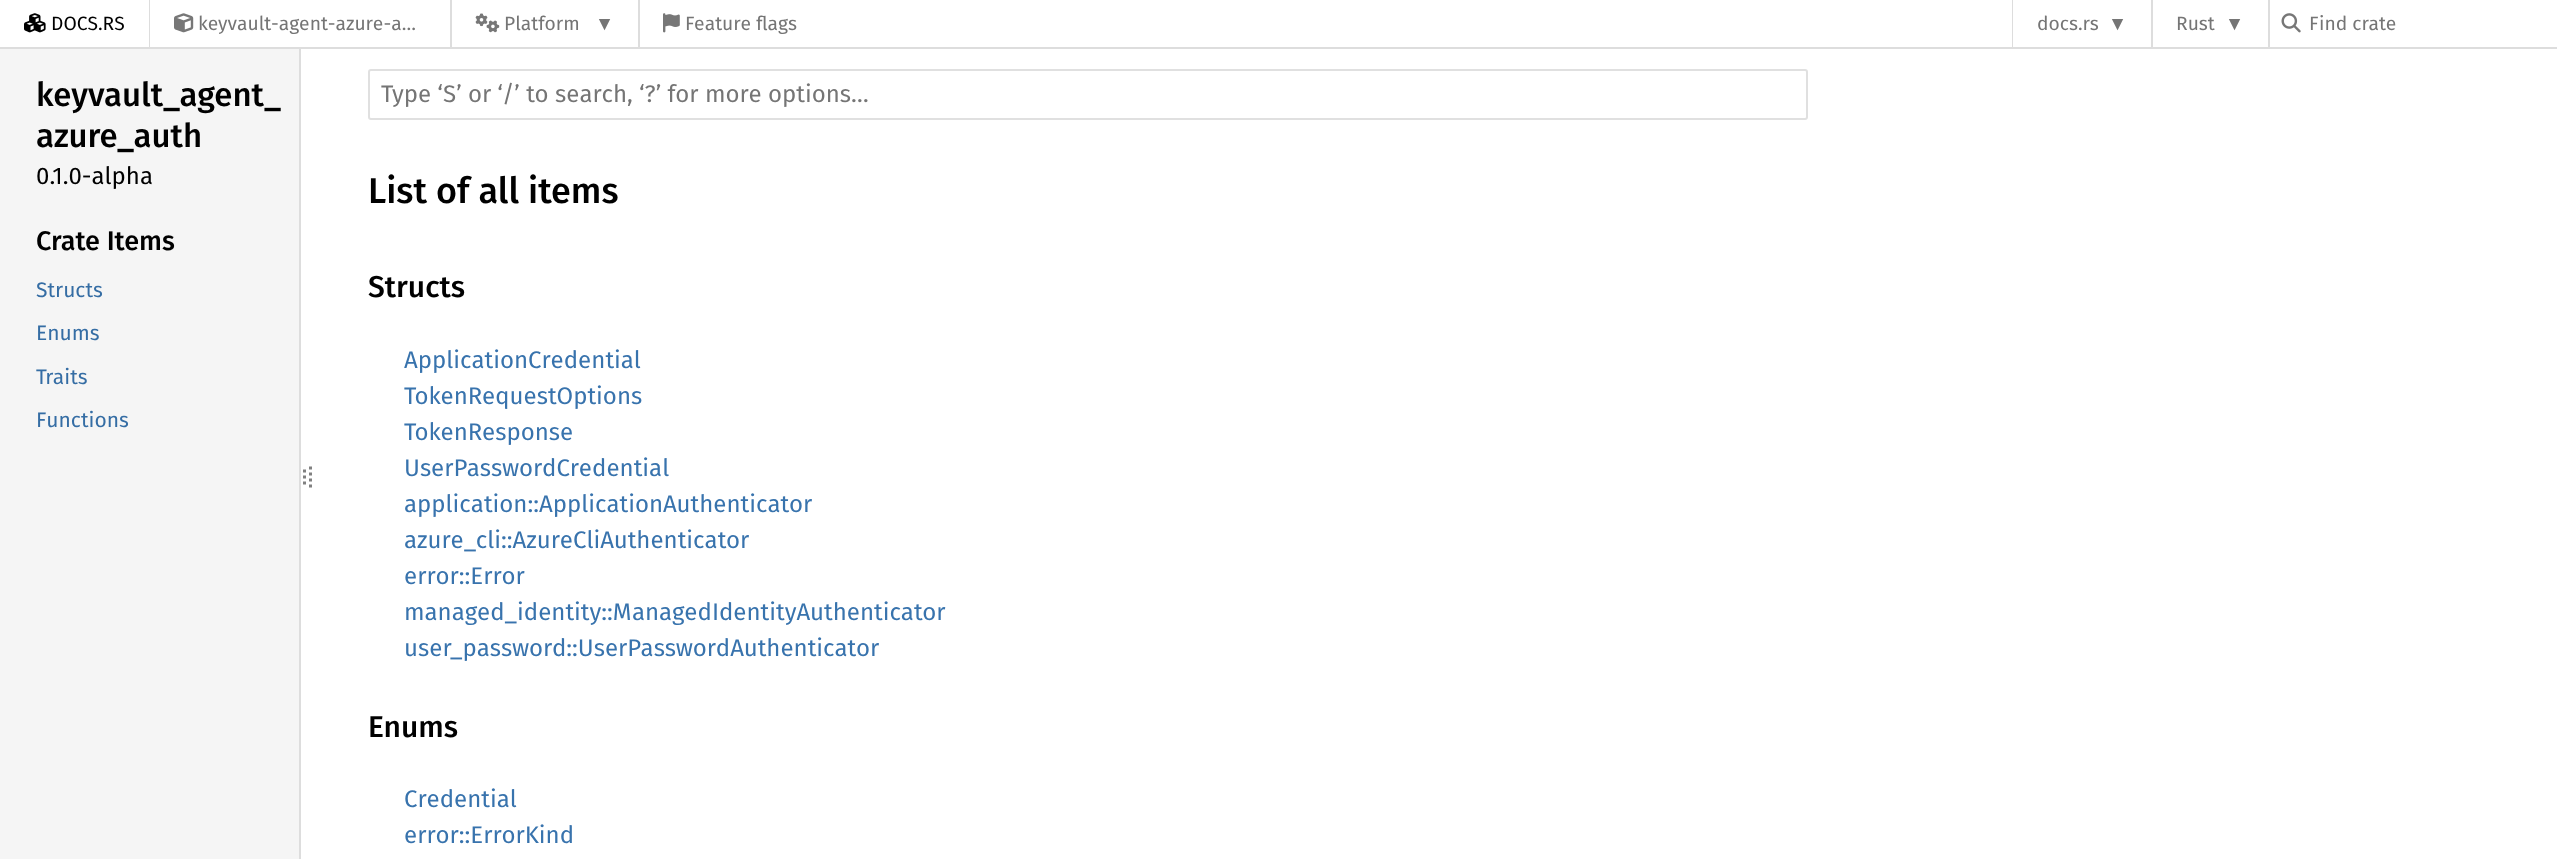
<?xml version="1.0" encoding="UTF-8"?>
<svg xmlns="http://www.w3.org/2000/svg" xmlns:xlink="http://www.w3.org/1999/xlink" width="2557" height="859">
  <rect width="100%" height="100%" fill="#ffffff" />
  <rect x="299" y="48" width="2" height="811" fill="#dddddd" />
  <rect y="47" width="2557" height="2" fill="#dddddd" />
  <image x="24" y="13" width="22" height="20" xlink:href="image1.png" />
  <rect x="149" width="1" height="47" fill="#dddddd" />
  <image x="174" y="13" width="20" height="20" xlink:href="image2.png" />
  <rect x="450" width="2" height="47" fill="#dddddd" />
  <image x="475" y="13" width="25" height="20" xlink:href="image3.png" />
  <rect x="638" width="2" height="47" fill="#dddddd" />
  <image x="663" y="13" width="17" height="20" xlink:href="image4.png" />
  <rect x="2012" width="1" height="47" fill="#dddddd" />
  <rect x="2151" width="2" height="47" fill="#dddddd" />
  <rect x="2268" width="2" height="47" fill="#dddddd" />
  <image x="2281" y="13" width="20" height="20" xlink:href="image5.png" />
  <rect y="49" width="299" height="810" fill="#f5f5f5" />
  <path d="M 304.5 469.5 v 3 m 0 3 v 3 m 0 3 v 3" fill="none" stroke="#808080" stroke-width="3" />
  <path d="M 310.5 466.5 v 24" fill="none" stroke="#808080" stroke-width="3" stroke-dasharray="3 3" />
  <rect x="369" y="70" width="1438" height="49" rx="2" fill="none" stroke="#e0e0e0" stroke-width="2" />
  <text x="51" y="30" style="font-family: Fira Sans; font-size: 19.25px; fill: #000000">DOCS.RS</text>
  <text x="198" y="30" style="font-family: Fira Sans; font-size: 19.25px; fill: #757575">keyvault-agent-azure-a…</text>
  <text x="504" y="30" style="font-family: Fira Sans; font-size: 19.25px; fill: #757575">Platform</text>
  <text x="595" y="30" style="font-family: Liberation Sans; font-size: 19.25px; fill: #757575">▼</text>
  <text x="685" y="30" style="font-family: Fira Sans; font-size: 19.25px; fill: #757575">Feature flags</text>
  <text x="2037" y="30" style="font-family: Fira Sans; font-size: 19.25px; fill: #757575">docs.rs</text>
  <text x="2108" y="30" style="font-family: Liberation Sans; font-size: 19.25px; fill: #757575">▼</text>
  <text x="2176" y="30" style="font-family: Fira Sans; font-size: 19.25px; fill: #757575">Rust</text>
  <text x="2225" y="30" style="font-family: Liberation Sans; font-size: 19.25px; fill: #757575">▼</text>
  <text x="2309" y="30" style="font-family: Fira Sans; font-size: 19.25px; fill: #757575">Find crate</text>
  <text x="36" y="106" style="font-family: Fira Sans; font-size: 33px; font-weight: 500; fill: #000000">keyvault_agent_</text>
  <text x="36" y="147" style="font-family: Fira Sans; font-size: 33px; font-weight: 500; fill: #000000">azure_auth</text>
  <text x="36" y="184" style="font-family: Fira Sans; font-size: 24px; fill: #000000">0.1.0-alpha</text>
  <text x="36" y="250" style="font-family: Fira Sans; font-size: 27px; font-weight: 500; fill: #000000">Crate Items</text>
  <text x="36" y="297" style="font-family: Fira Sans; font-size: 21px; fill: #356da4">Structs</text>
  <text x="36" y="340" style="font-family: Fira Sans; font-size: 21px; fill: #356da4">Enums</text>
  <text x="36" y="384" style="font-family: Fira Sans; font-size: 21px; fill: #356da4">Traits</text>
  <text x="36" y="427" style="font-family: Fira Sans; font-size: 21px; fill: #356da4">Functions</text>
  <text x="381" y="102" style="font-family: Fira Sans; font-size: 24px; fill: #757575">Type ‘S’ or ‘/’ to search, ‘?’ for more options…</text>
  <text x="368" y="203" style="font-family: Fira Sans; font-size: 36px; font-weight: 500; fill: #000000">List of all items</text>
  <text x="368" y="297" style="font-family: Fira Sans; font-size: 30px; font-weight: 500; fill: #000000">Structs</text>
  <text x="404" y="368" style="font-family: Fira Sans; font-size: 24px; fill: #3873ad">ApplicationCredential</text>
  <text x="404" y="404" style="font-family: Fira Sans; font-size: 24px; fill: #3873ad">TokenRequestOptions</text>
  <text x="404" y="440" style="font-family: Fira Sans; font-size: 24px; fill: #3873ad">TokenResponse</text>
  <text x="404" y="476" style="font-family: Fira Sans; font-size: 24px; fill: #3873ad">UserPasswordCredential</text>
  <text x="404" y="512" style="font-family: Fira Sans; font-size: 24px; fill: #3873ad">application::ApplicationAuthenticator</text>
  <text x="404" y="548" style="font-family: Fira Sans; font-size: 24px; fill: #3873ad">azure_cli::AzureCliAuthenticator</text>
  <text x="404" y="584" style="font-family: Fira Sans; font-size: 24px; fill: #3873ad">error::Error</text>
  <text x="404" y="620" style="font-family: Fira Sans; font-size: 24px; fill: #3873ad">managed_identity::ManagedIdentityAuthenticator</text>
  <text x="404" y="656" style="font-family: Fira Sans; font-size: 24px; fill: #3873ad">user_password::UserPasswordAuthenticator</text>
  <text x="368" y="737" style="font-family: Fira Sans; font-size: 30px; font-weight: 500; fill: #000000">Enums</text>
  <text x="404" y="807" style="font-family: Fira Sans; font-size: 24px; fill: #3873ad">Credential</text>
  <text x="404" y="843" style="font-family: Fira Sans; font-size: 24px; fill: #3873ad">error::ErrorKind</text>
</svg>
